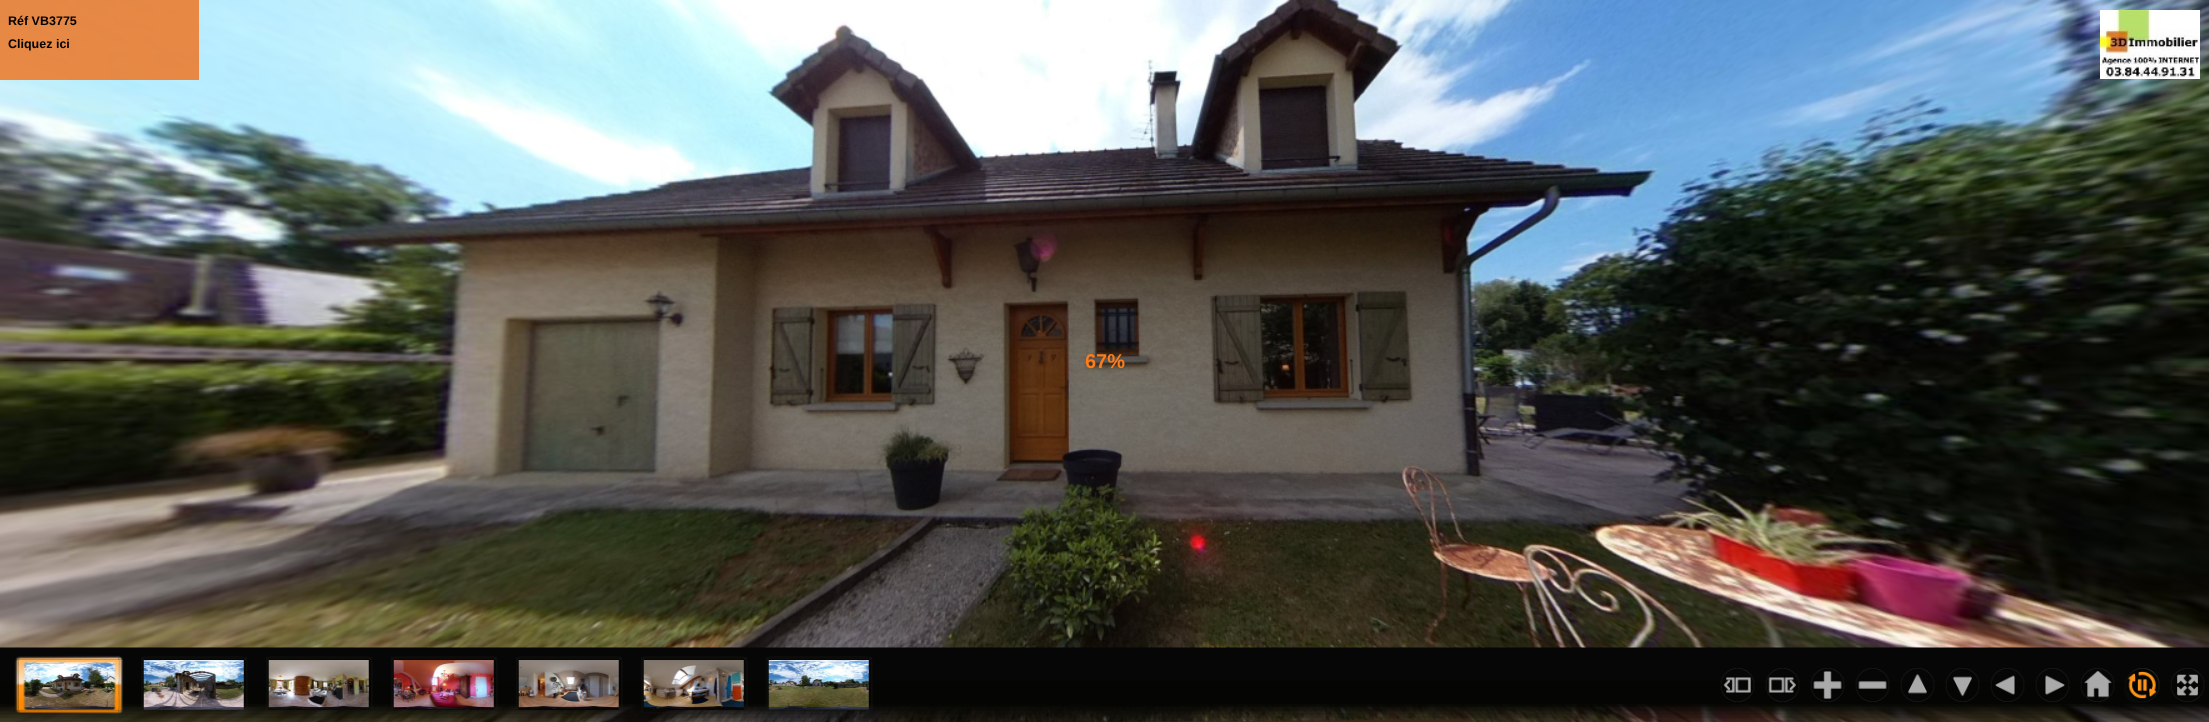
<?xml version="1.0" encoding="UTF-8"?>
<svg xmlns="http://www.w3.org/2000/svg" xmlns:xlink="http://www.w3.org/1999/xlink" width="2209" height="722">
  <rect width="100%" height="100%" fill="#ffffff" />
  <image x="0" y="0" width="2209" height="722" xlink:href="image1.png" />
  <rect width="199" height="80" fill="#f26f17" fill-opacity="0.8" />
  <image x="2100" y="10" width="100" height="69" xlink:href="image2.png" />
  <image x="0" y="647" width="2209" height="75" xlink:href="image3.png" />
  <image x="18" y="660" width="101" height="50" xlink:href="image4.png" />
  <image x="15" y="656" width="5" height="5" xlink:href="image5.png" />
  <image x="18" y="655" width="102" height="6" xlink:href="image6.png" />
  <image x="118" y="656" width="5" height="5" xlink:href="image7.png" />
  <image x="14" y="660" width="6" height="50" xlink:href="image8.png" />
  <image x="18" y="660" width="101" height="50" xlink:href="image9.png" />
  <image x="118" y="660" width="6" height="50" xlink:href="image10.png" />
  <image x="15" y="709" width="5" height="4" xlink:href="image11.png" />
  <image x="18" y="709" width="102" height="6" xlink:href="image12.png" />
  <image x="118" y="709" width="5" height="5" xlink:href="image13.png" />
  <image x="143" y="660" width="101" height="50" xlink:href="image14.png" />
  <rect x="141" y="657" width="3" height="3" fill="#0f0e0e" />
  <rect x="144" y="656" width="99" height="3" fill="#0b0b0a" />
  <rect x="244" y="657" width="3" height="3" fill="#100f0e" />
  <image x="141" y="660" width="2" height="49" xlink:href="image15.png" />
  <image x="246" y="660" width="2" height="48" xlink:href="image16.png" />
  <rect x="142" y="711" width="1" height="1" fill="#1c1b13" />
  <rect x="239" y="712" width="2" height="1" fill="#28241d" />
  <image x="268" y="660" width="101" height="50" xlink:href="image17.png" />
  <rect x="266" y="657" width="3" height="3" fill="#0f0e0e" />
  <rect x="269" y="656" width="100" height="3" fill="#0b0b0a" />
  <rect x="369" y="657" width="3" height="3" fill="#100f0e" />
  <image x="266" y="660" width="2" height="49" xlink:href="image18.png" />
  <image x="371" y="660" width="2" height="49" xlink:href="image19.png" />
  <rect x="370" y="711" width="1" height="1" fill="#1b1913" />
  <image x="393" y="660" width="101" height="50" xlink:href="image20.png" />
  <rect x="391" y="657" width="3" height="3" fill="#0f0e0e" />
  <rect x="394" y="656" width="100" height="3" fill="#0b0b0a" />
  <rect x="494" y="657" width="3" height="3" fill="#100f0e" />
  <image x="391" y="660" width="2" height="50" xlink:href="image21.png" />
  <image x="495" y="660" width="3" height="48" xlink:href="image22.png" />
  <rect x="392" y="711" width="1" height="1" fill="#1b1912" />
  <image x="518" y="660" width="101" height="50" xlink:href="image23.png" />
  <rect x="516" y="657" width="3" height="3" fill="#0f0e0e" />
  <rect x="519" y="656" width="100" height="3" fill="#0b0b0a" />
  <rect x="619" y="657" width="3" height="3" fill="#100f0f" />
  <image x="516" y="660" width="2" height="48" xlink:href="image24.png" />
  <image x="621" y="660" width="2" height="47" xlink:href="image25.png" />
  <rect x="614" y="712" width="1" height="1" fill="#262421" />
  <image x="643" y="660" width="101" height="50" xlink:href="image26.png" />
  <rect x="641" y="657" width="3" height="3" fill="#0f0e0e" />
  <rect x="644" y="656" width="100" height="3" fill="#0b0b0a" />
  <rect x="744" y="657" width="3" height="3" fill="#100f0e" />
  <image x="641" y="660" width="2" height="50" xlink:href="image27.png" />
  <image x="745" y="660" width="3" height="48" xlink:href="image28.png" />
  <image x="641" y="710" width="2" height="3" xlink:href="image29.png" />
  <image x="644" y="712" width="86" height="2" xlink:href="image30.png" />
  <image x="768" y="660" width="101" height="50" xlink:href="image31.png" />
  <rect x="766" y="657" width="3" height="3" fill="#0f0e0e" />
  <rect x="769" y="656" width="99" height="3" fill="#0b0b0a" />
  <rect x="869" y="657" width="3" height="3" fill="#100f0e" />
  <image x="766" y="660" width="2" height="47" xlink:href="image32.png" />
  <image x="871" y="660" width="2" height="50" xlink:href="image33.png" />
  <image x="1720" y="668" width="35" height="34" xlink:href="image34.png" />
  <image x="1765" y="668" width="35" height="34" xlink:href="image34.png" />
  <image x="1810" y="668" width="35" height="34" xlink:href="image34.png" />
  <image x="1855" y="668" width="35" height="34" xlink:href="image35.png" />
  <image x="1900" y="668" width="35" height="34" xlink:href="image35.png" />
  <image x="1945" y="668" width="35" height="34" xlink:href="image35.png" />
  <image x="1990" y="668" width="35" height="34" xlink:href="image35.png" />
  <image x="2035" y="668" width="35" height="34" xlink:href="image35.png" />
  <image x="2080" y="668" width="35" height="34" xlink:href="image35.png" />
  <image x="2124" y="668" width="36" height="35" xlink:href="image36.png" />
  <image x="2170" y="668" width="35" height="34" xlink:href="image35.png" />
  <image x="1723" y="677" width="28" height="16" xlink:href="image37.png" />
  <image x="1768" y="677" width="28" height="16" xlink:href="image38.png" />
  <image x="1813" y="671" width="29" height="29" xlink:href="image39.png" />
  <image x="1858" y="681" width="29" height="8" xlink:href="image40.png" />
  <image x="1908" y="673" width="19" height="21" xlink:href="image41.png" />
  <image x="1953" y="676" width="19" height="21" xlink:href="image42.png" />
  <image x="1995" y="675" width="20" height="20" xlink:href="image43.png" />
  <image x="2045" y="675" width="20" height="20" xlink:href="image44.png" />
  <image x="2084" y="671" width="28" height="27" xlink:href="image45.png" />
  <image x="2128" y="671" width="29" height="28" xlink:href="image46.png" />
  <image x="2176" y="674" width="22" height="22" xlink:href="image47.png" />
  <text x="8" y="25" style="font-family: Liberation Sans; font-size: 12.5px; font-weight: bold; fill: #000000">Réf VB3775</text>
  <text x="8" y="48" style="font-family: Liberation Sans; font-size: 12.5px; font-weight: bold; fill: #000000">Cliquez ici</text>
  <text x="1085" y="368" style="font-family: Liberation Sans; font-size: 20px; font-weight: bold; fill: #ff7c17">67%</text>
</svg>
